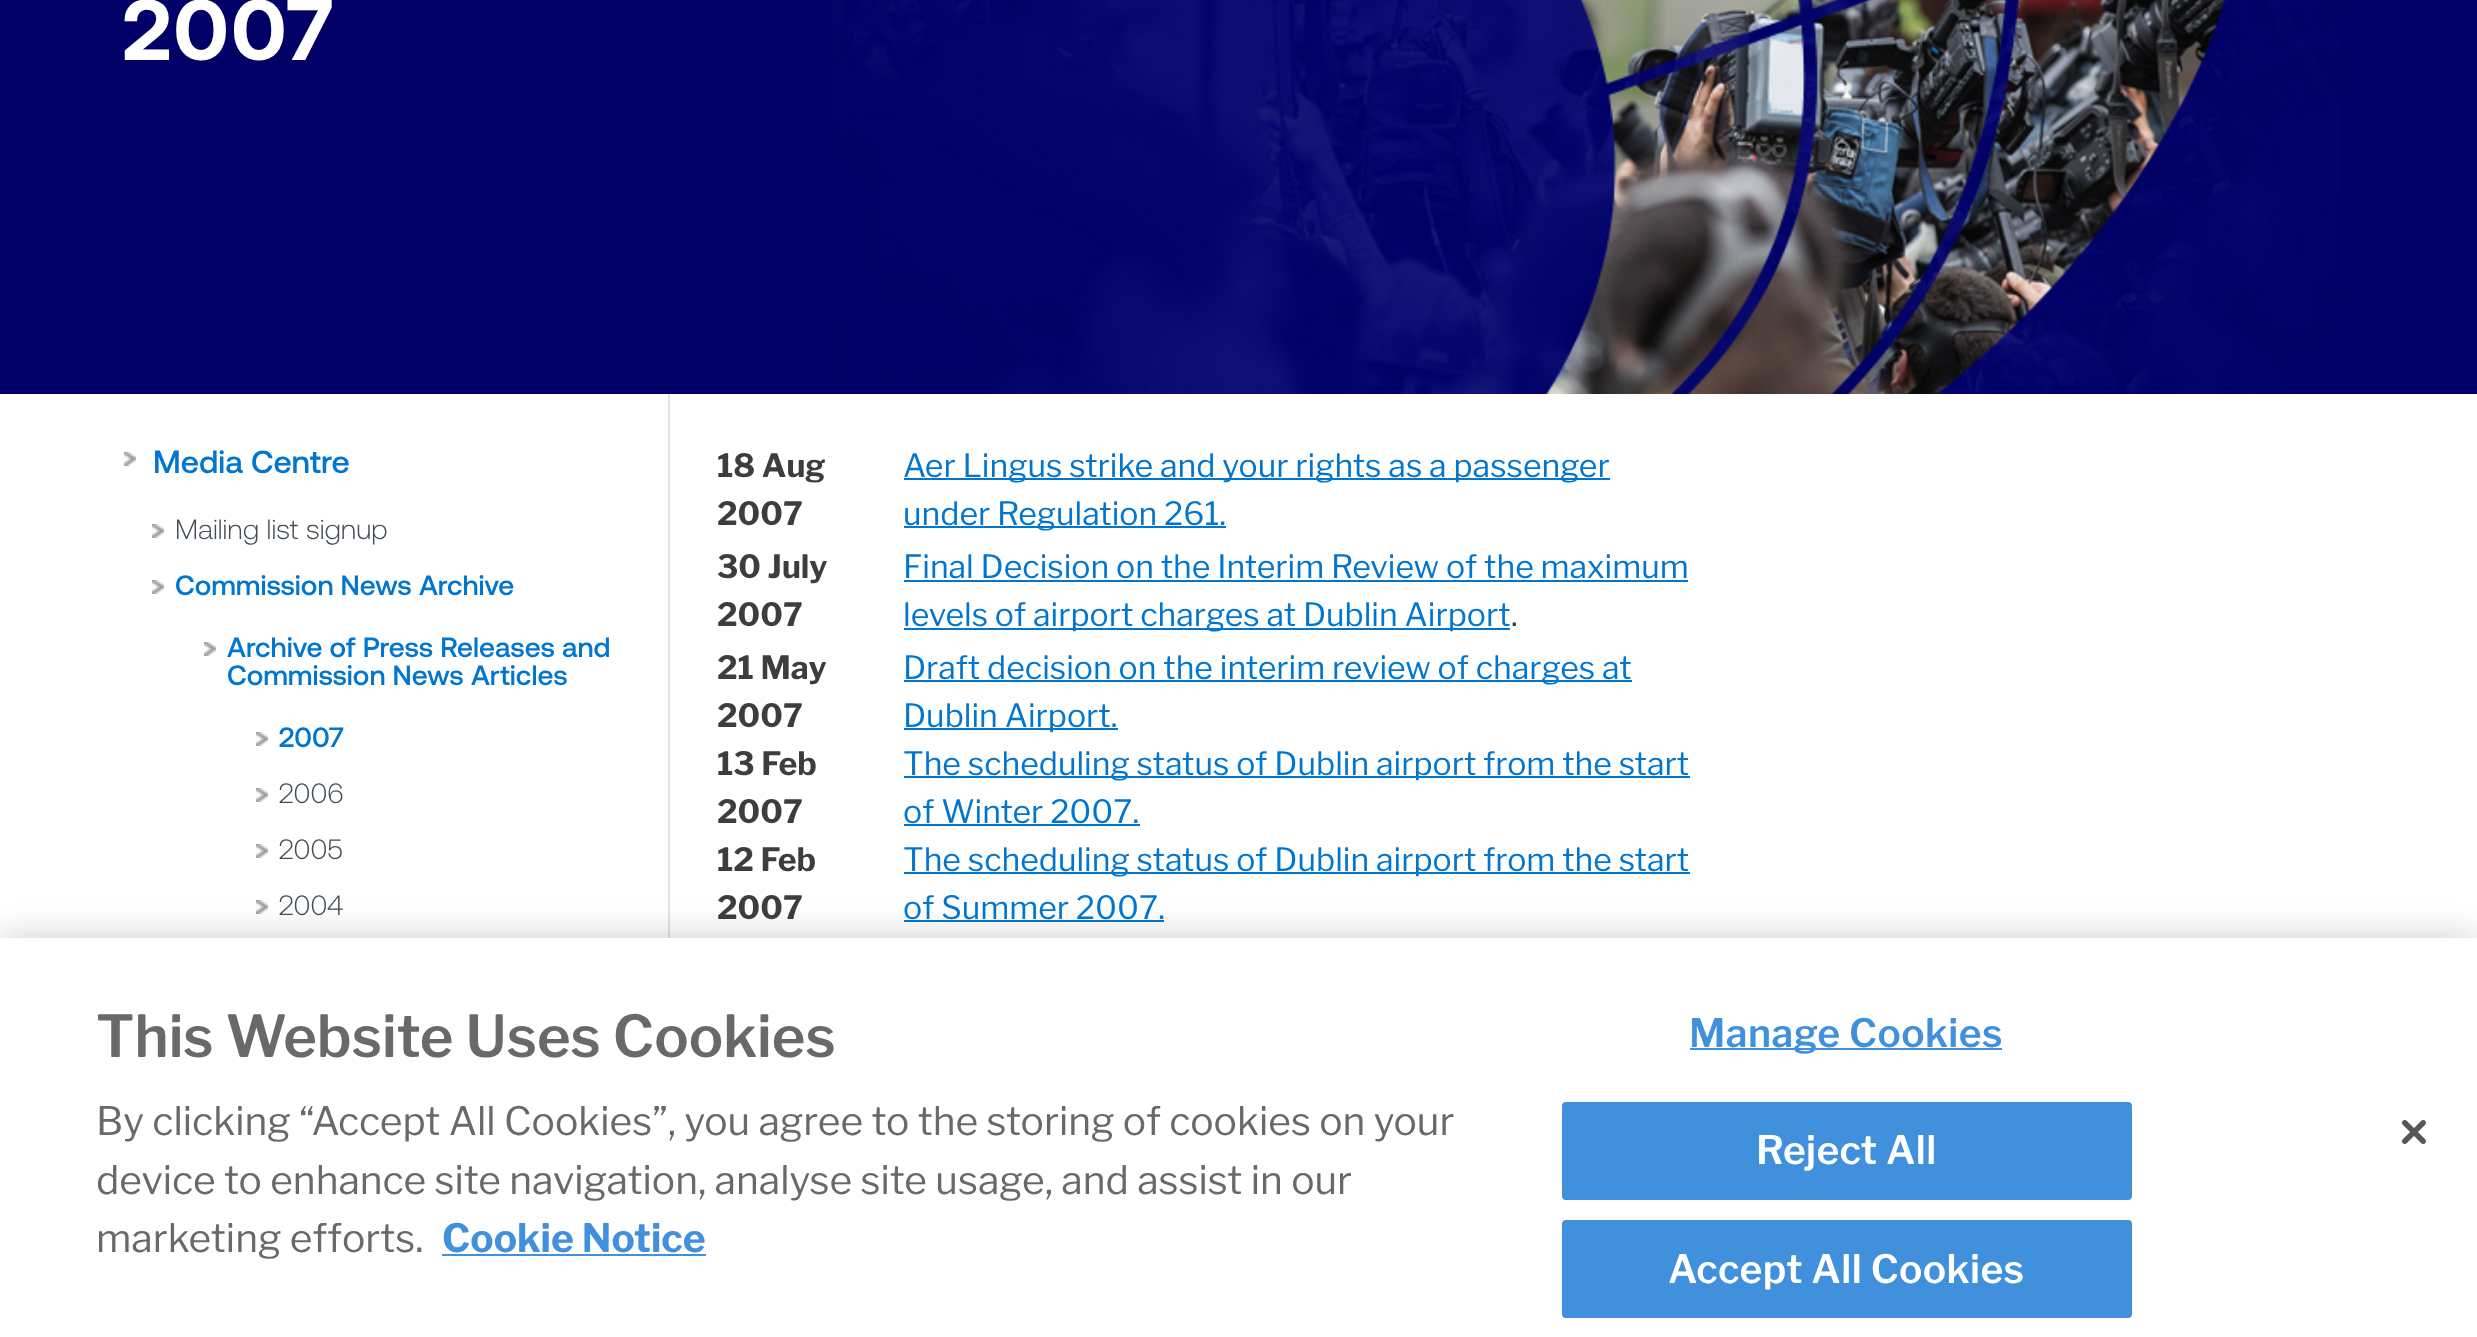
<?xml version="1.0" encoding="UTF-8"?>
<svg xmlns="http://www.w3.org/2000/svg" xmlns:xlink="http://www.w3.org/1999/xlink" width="2477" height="1337">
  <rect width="100%" height="100%" fill="#ffffff" />
  <rect width="2477" height="394" fill="#000066" />
  <image x="832" y="0" width="1508" height="394" xlink:href="image1.png" />
  <rect x="668" y="394" width="2" height="544" fill="#e4e4e4" />
  <image x="124" y="452" width="12" height="14" xlink:href="image2.png" />
  <image x="152" y="524" width="12" height="14" xlink:href="image3.png" />
  <image x="152" y="580" width="12" height="14" xlink:href="image3.png" />
  <image x="204" y="642" width="12" height="14" xlink:href="image3.png" />
  <image x="256" y="732" width="12" height="14" xlink:href="image3.png" />
  <image x="256" y="788" width="12" height="14" xlink:href="image3.png" />
  <image x="256" y="844" width="12" height="14" xlink:href="image3.png" />
  <image x="256" y="900" width="12" height="14" xlink:href="image3.png" />
  <rect x="904" y="478" width="706" height="2" fill="#0076d1" />
  <rect x="904" y="526" width="322" height="2" fill="#0076d1" />
  <rect x="904" y="580" width="784" height="2" fill="#0076d1" />
  <rect x="904" y="628" width="606" height="2" fill="#0076d1" />
  <rect x="904" y="680" width="728" height="2" fill="#0076d1" />
  <rect x="904" y="728" width="214" height="2" fill="#0076d1" />
  <rect x="904" y="776" width="786" height="2" fill="#0076d1" />
  <rect x="904" y="824" width="236" height="2" fill="#0076d1" />
  <rect x="904" y="872" width="786" height="2" fill="#0076d1" />
  <rect x="904" y="920" width="260" height="2" fill="#0076d1" />
  <rect y="938" width="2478" height="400" fill="#000000" fill-opacity="0.2" filter="blur(18px)" />
  <rect y="938" width="2477" height="399" fill="#ffffff" />
  <rect x="442" y="1254" width="264" height="2" fill="#4090dc" />
  <rect x="1690" y="1048" width="312" height="2" fill="#4090dc" />
  <rect x="1563" y="1103" width="568" height="96" rx="3" fill="#4090dc" stroke="#4090dc" stroke-width="2" />
  <rect x="1563" y="1221" width="568" height="96" rx="3" fill="#4090dc" stroke="#4090dc" stroke-width="2" />
  <image x="2402" y="1120" width="24" height="24" xlink:href="image4.png" />
  <text x="123" y="60" style="font-family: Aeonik; font-size: 86px; font-weight: bold; letter-spacing: 2px; fill: #ffffff">2007</text>
  <text x="153" y="473" style="font-family: Aeonik; font-size: 32px; font-weight: 500; fill: #0076d1">Media Centre</text>
  <text x="175" y="539" style="font-family: Aeonik; font-size: 28px; font-weight: 300; fill: #424d55">Mailing list signup</text>
  <text x="175" y="595" style="font-family: Aeonik; font-size: 28px; font-weight: 500; fill: #0076d1">Commission News Archive</text>
  <text x="227" y="657" style="font-family: Aeonik; font-size: 28px; font-weight: 500; fill: #0076d1">Archive of Press Releases and</text>
  <text x="227" y="685" style="font-family: Aeonik; font-size: 28px; font-weight: 500; fill: #0076d1">Commission News Articles</text>
  <text x="279" y="747" style="font-family: Aeonik; font-size: 28px; font-weight: 500; fill: #0076d1">2007</text>
  <text x="279" y="803" style="font-family: Aeonik; font-size: 28px; font-weight: 300; fill: #424d55">2006</text>
  <text x="279" y="859" style="font-family: Aeonik; font-size: 28px; font-weight: 300; fill: #424d55">2005</text>
  <text x="279" y="915" style="font-family: Aeonik; font-size: 28px; font-weight: 300; fill: #424d55">2004</text>
  <text x="717" y="477" style="font-family: Libre Franklin; font-size: 32px; font-weight: bold; fill: #3d3d3d">18 Aug</text>
  <text x="717" y="525" style="font-family: Libre Franklin; font-size: 32px; font-weight: bold; fill: #3d3d3d">2007</text>
  <text x="903" y="477" style="font-family: Libre Franklin; font-size: 32px; fill: #0076d1">Aer Lingus strike and your rights as a passenger</text>
  <text x="903" y="525" style="font-family: Libre Franklin; font-size: 32px; fill: #0076d1">under Regulation 261.</text>
  <text x="717" y="578" style="font-family: Libre Franklin; font-size: 32px; font-weight: bold; fill: #3d3d3d">30 July</text>
  <text x="717" y="626" style="font-family: Libre Franklin; font-size: 32px; font-weight: bold; fill: #3d3d3d">2007</text>
  <text x="903" y="578" style="font-family: Libre Franklin; font-size: 32px; fill: #0076d1">Final Decision on the Interim Review of the maximum</text>
  <text x="903" y="626" style="font-family: Libre Franklin; font-size: 32px; fill: #0076d1">levels of airport charges at Dublin Airport</text>
  <text x="1511" y="626" style="font-family: Libre Franklin; font-size: 32px; fill: #3d3d3d">.</text>
  <text x="717" y="679" style="font-family: Libre Franklin; font-size: 32px; font-weight: bold; fill: #3d3d3d">21 May</text>
  <text x="717" y="727" style="font-family: Libre Franklin; font-size: 32px; font-weight: bold; fill: #3d3d3d">2007</text>
  <text x="903" y="679" style="font-family: Libre Franklin; font-size: 32px; fill: #0076d1">Draft decision on the interim review of charges at</text>
  <text x="903" y="727" style="font-family: Libre Franklin; font-size: 32px; fill: #0076d1">Dublin Airport.</text>
  <text x="717" y="775" style="font-family: Libre Franklin; font-size: 32px; font-weight: bold; fill: #3d3d3d">13 Feb</text>
  <text x="717" y="823" style="font-family: Libre Franklin; font-size: 32px; font-weight: bold; fill: #3d3d3d">2007</text>
  <text x="903" y="775" style="font-family: Libre Franklin; font-size: 32px; fill: #0076d1">The scheduling status of Dublin airport from the start</text>
  <text x="903" y="823" style="font-family: Libre Franklin; font-size: 32px; fill: #0076d1">of Winter 2007.</text>
  <text x="717" y="871" style="font-family: Libre Franklin; font-size: 32px; font-weight: bold; fill: #3d3d3d">12 Feb</text>
  <text x="717" y="919" style="font-family: Libre Franklin; font-size: 32px; font-weight: bold; fill: #3d3d3d">2007</text>
  <text x="903" y="871" style="font-family: Libre Franklin; font-size: 32px; fill: #0076d1">The scheduling status of Dublin airport from the start</text>
  <text x="903" y="919" style="font-family: Libre Franklin; font-size: 32px; fill: #0076d1">of Summer 2007.</text>
  <text x="96" y="1057" style="font-family: Libre Franklin; font-size: 57.6px; font-weight: 600; fill: #696969">This Website Uses Cookies</text>
  <text x="96" y="1135" style="font-family: Libre Franklin; font-size: 39px; fill: #696969">By clicking “Accept All Cookies”, you agree to the storing of cookies on your</text>
  <text x="96" y="1194" style="font-family: Libre Franklin; font-size: 39px; fill: #696969">device to enhance site navigation, analyse site usage, and assist in our</text>
  <text x="96" y="1252" style="font-family: Libre Franklin; font-size: 39px; fill: #696969">marketing efforts.</text>
  <text x="442" y="1252" style="font-family: Libre Franklin; font-size: 39px; font-weight: bold; fill: #4090dc">Cookie Notice</text>
  <text x="1689" y="1047" style="font-family: Libre Franklin; font-size: 39px; font-weight: 600; letter-spacing: 0.4px; fill: #4090dc">Manage Cookies</text>
  <text x="1756" y="1164" style="font-family: Libre Franklin; font-size: 39px; font-weight: 600; letter-spacing: 0.4px; fill: #ffffff">Reject All</text>
  <text x="1668" y="1283" style="font-family: Libre Franklin; font-size: 39px; font-weight: 600; letter-spacing: 0.4px; fill: #ffffff">Accept All Cookies</text>
</svg>
